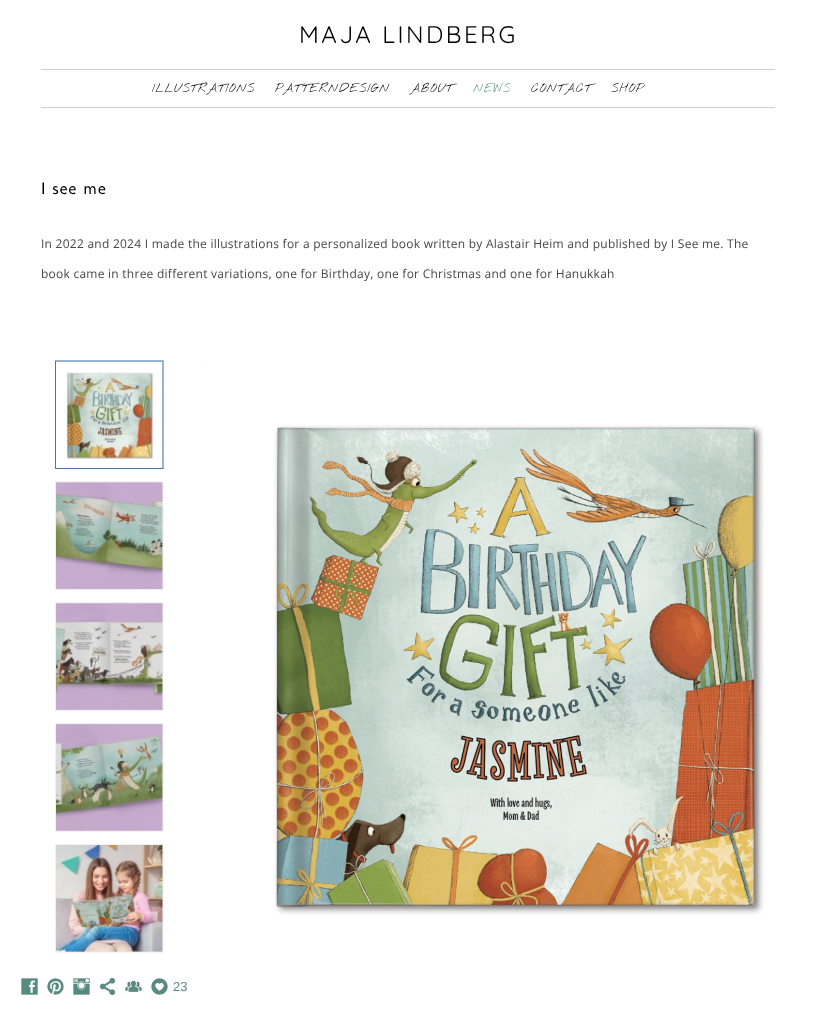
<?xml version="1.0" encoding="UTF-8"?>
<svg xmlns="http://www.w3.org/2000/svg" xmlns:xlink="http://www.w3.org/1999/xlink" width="816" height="1011">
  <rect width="100%" height="100%" fill="#ffffff" />
  <rect x="41" y="69" width="734" height="1" fill="#cdcdcd" />
  <rect x="41" y="107" width="734" height="1" fill="#cdcdcd" />
  <image x="55" y="360" width="709" height="593" xlink:href="image1.png" />
  <image x="21" y="978" width="17" height="17" xlink:href="image2.png" />
  <image x="47" y="978" width="17" height="17" xlink:href="image3.png" />
  <image x="73" y="978" width="17" height="17" xlink:href="image4.png" />
  <image x="99" y="978" width="17" height="17" xlink:href="image5.png" />
  <image x="125" y="980" width="17" height="12" xlink:href="image6.png" />
  <image x="151" y="978" width="17" height="17" xlink:href="image7.png" />
  <text x="299" y="43" style="font-family: Quicksand; font-size: 24px; letter-spacing: 2.5px; fill: #000000">MAJA LINDBERG</text>
  <text x="152" y="92" style="font-family: Nothing You Could Do; font-size: 12px; font-weight: 100; letter-spacing: 1px; fill: #000000">ILLUSTRATIONS</text>
  <text x="275" y="92" style="font-family: Nothing You Could Do; font-size: 12px; font-weight: 100; letter-spacing: 1px; fill: #000000">PATTERNDESIGN</text>
  <text x="410" y="92" style="font-family: Nothing You Could Do; font-size: 12px; font-weight: 100; letter-spacing: 1px; fill: #000000">ABOUT</text>
  <text x="473" y="92" style="font-family: Nothing You Could Do; font-size: 12px; font-weight: 100; letter-spacing: 1px; fill: #599479">NEWS</text>
  <text x="531" y="92" style="font-family: Nothing You Could Do; font-size: 12px; font-weight: 100; letter-spacing: 1px; fill: #000000">CONTACT</text>
  <text x="611" y="92" style="font-family: Nothing You Could Do; font-size: 12px; font-weight: 100; letter-spacing: 1px; fill: #000000">SHOP</text>
  <text x="41" y="194" style="font-family: Molengo; font-size: 17px; letter-spacing: 1px; fill: #000000">I see me</text>
  <text x="41" y="248" style="font-family: Open Sans; font-size: 12px; letter-spacing: 0.25px; fill: #474747">In 2022 and 2024 I made the illustrations for a personalized book written by Alastair Heim and published by I See me. The</text>
  <text x="41" y="278" style="font-family: Open Sans; font-size: 12px; letter-spacing: 0.25px; fill: #474747">book came in three different variations, one for Birthday, one for Christmas and one for Hanukkah</text>
  <text x="173" y="991" style="font-family: Liberation Sans; font-size: 13px; fill: #588a80">23</text>
</svg>
